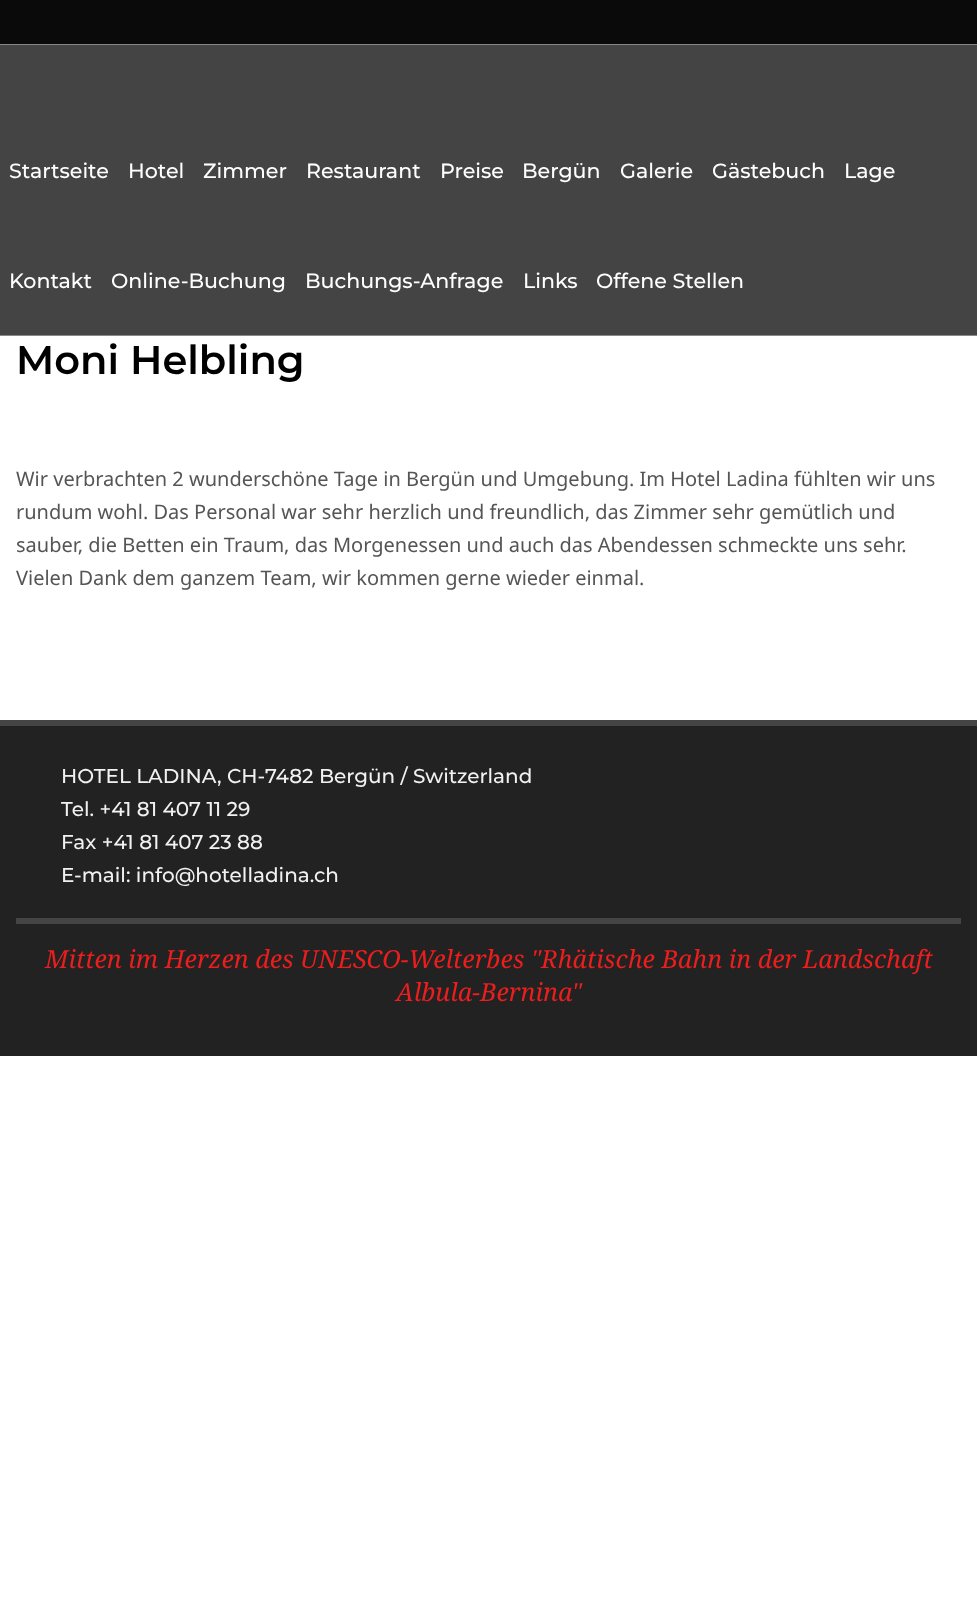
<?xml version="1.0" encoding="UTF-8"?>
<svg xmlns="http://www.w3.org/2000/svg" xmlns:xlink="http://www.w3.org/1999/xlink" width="977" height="1613">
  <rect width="100%" height="100%" fill="#ffffff" />
  <rect y="45" width="977" height="290" fill="#444444" />
  <rect width="977" height="44" fill="#0a0a0a" />
  <rect y="44" width="977" height="1" fill="#888888" />
  <rect y="335" width="977" height="1" fill="#888888" />
  <rect y="726" width="977" height="330" fill="#222222" />
  <rect y="720" width="977" height="6" fill="#444444" />
  <rect x="16" y="918" width="945" height="6" fill="#444444" />
  <text x="9" y="178" style="font-family: Montserrat; font-size: 20.6px; font-weight: 500; fill: #ffffff">Startseite</text>
  <text x="128" y="178" style="font-family: Montserrat; font-size: 20.6px; font-weight: 500; fill: #ffffff">Hotel</text>
  <text x="203" y="178" style="font-family: Montserrat; font-size: 20.6px; font-weight: 500; fill: #ffffff">Zimmer</text>
  <text x="306" y="178" style="font-family: Montserrat; font-size: 20.6px; font-weight: 500; fill: #ffffff">Restaurant</text>
  <text x="440" y="178" style="font-family: Montserrat; font-size: 20.6px; font-weight: 500; fill: #ffffff">Preise</text>
  <text x="522" y="178" style="font-family: Montserrat; font-size: 20.6px; font-weight: 500; fill: #ffffff">Bergün</text>
  <text x="620" y="178" style="font-family: Montserrat; font-size: 20.6px; font-weight: 500; fill: #ffffff">Galerie</text>
  <text x="712" y="178" style="font-family: Montserrat; font-size: 20.6px; font-weight: 500; fill: #ffffff">Gästebuch</text>
  <text x="844" y="178" style="font-family: Montserrat; font-size: 20.6px; font-weight: 500; fill: #ffffff">Lage</text>
  <text x="9" y="288" style="font-family: Montserrat; font-size: 20.6px; font-weight: 500; fill: #ffffff">Kontakt</text>
  <text x="111" y="288" style="font-family: Montserrat; font-size: 20.6px; font-weight: 500; fill: #ffffff">Online-Buchung</text>
  <text x="305" y="288" style="font-family: Montserrat; font-size: 20.6px; font-weight: 500; fill: #ffffff">Buchungs-Anfrage</text>
  <text x="523" y="288" style="font-family: Montserrat; font-size: 20.6px; font-weight: 500; fill: #ffffff">Links</text>
  <text x="596" y="288" style="font-family: Montserrat; font-size: 20.6px; font-weight: 500; fill: #ffffff">Offene Stellen</text>
  <text x="16" y="374" style="font-family: Montserrat; font-size: 40px; font-weight: 600; fill: #000000">Moni Helbling</text>
  <text x="16" y="486" style="font-family: Noto Sans; font-size: 20px; fill: #555555">Wir verbrachten 2 wunderschöne Tage in Bergün und Umgebung. Im Hotel Ladina fühlten wir uns</text>
  <text x="16" y="519" style="font-family: Noto Sans; font-size: 20px; fill: #555555">rundum wohl. Das Personal war sehr herzlich und freundlich, das Zimmer sehr gemütlich und</text>
  <text x="16" y="552" style="font-family: Noto Sans; font-size: 20px; fill: #555555">sauber, die Betten ein Traum, das Morgenessen und auch das Abendessen schmeckte uns sehr.</text>
  <text x="16" y="585" style="font-family: Noto Sans; font-size: 20px; fill: #555555">Vielen Dank dem ganzem Team, wir kommen gerne wieder einmal.</text>
  <text x="61" y="783" style="font-family: Montserrat; font-size: 20px; font-weight: 500; fill: #f1f1f1">HOTEL LADINA, CH-7482 Bergün / Switzerland</text>
  <text x="61" y="816" style="font-family: Montserrat; font-size: 20px; font-weight: 500; fill: #f1f1f1">Tel. +41 81 407 11 29</text>
  <text x="61" y="849" style="font-family: Montserrat; font-size: 20px; font-weight: 500; fill: #f1f1f1">Fax +41 81 407 23 88</text>
  <text x="61" y="882" style="font-family: Montserrat; font-size: 20px; font-weight: 500; fill: #f1f1f1">E-mail: info@hotelladina.ch</text>
  <text x="45" y="968" style="font-family: Noto Serif; font-size: 25px; font-style: italic; fill: #eb1e1e">Mitten im Herzen des UNESCO-Welterbes "Rhätische Bahn in der Landschaft</text>
  <text x="396" y="1001" style="font-family: Noto Serif; font-size: 25px; font-style: italic; fill: #eb1e1e">Albula-Bernina"</text>
</svg>
